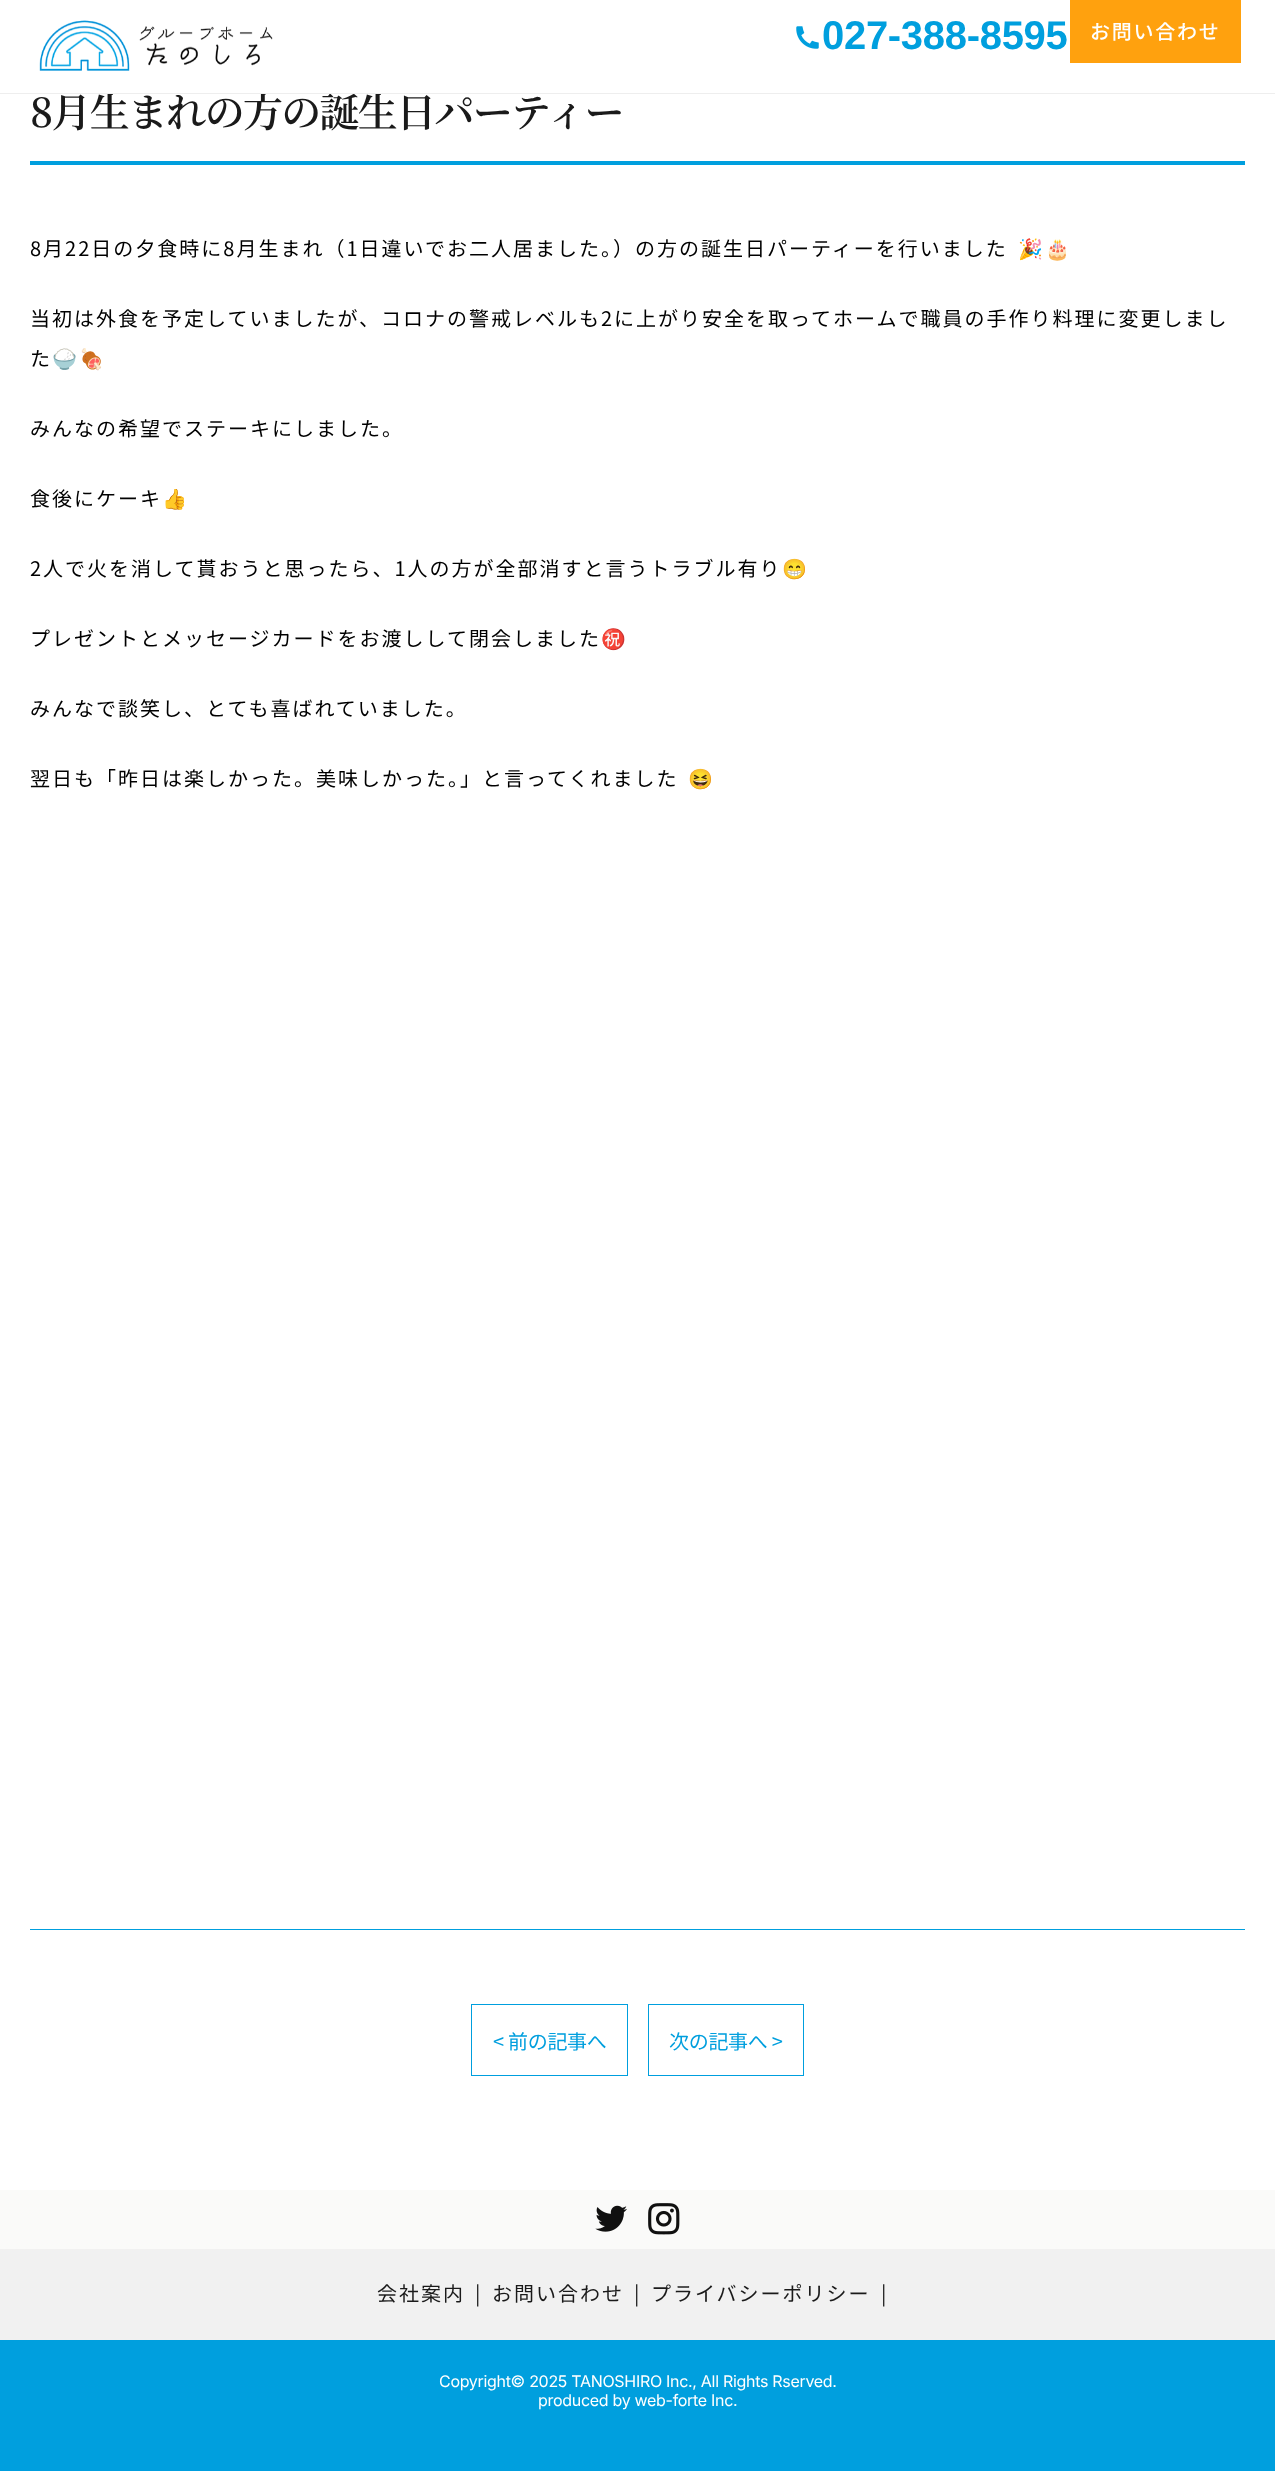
<?xml version="1.0" encoding="UTF-8"?>
<svg xmlns="http://www.w3.org/2000/svg" xmlns:xlink="http://www.w3.org/1999/xlink" width="1275" height="2471">
  <rect width="100%" height="100%" fill="#ffffff" />
  <image x="39" y="20" width="234" height="51" xlink:href="image1.png" />
  <image x="796" y="26" width="23" height="23" xlink:href="image2.png" />
  <rect x="1070" width="171" height="63" fill="#ffa10e" />
  <rect x="30" y="161" width="1215" height="4" fill="#009fde" />
  <rect x="30" y="1929" width="1215" height="1" fill="#009fde" />
  <rect x="471.5" y="2004.5" width="156" height="71" fill="none" stroke="#009fde" />
  <rect x="648.5" y="2004.5" width="155" height="71" fill="none" stroke="#009fde" />
  <rect y="2190" width="1275" height="59" fill="#fafaf9" />
  <image x="595" y="2205" width="32" height="27" xlink:href="image3.png" />
  <image x="648" y="2203" width="32" height="32" xlink:href="image4.png" />
  <rect y="2340" width="1275" height="131" fill="#009fde" />
  <rect y="2249" width="1275" height="91" fill="#f1f1f1" />
  <text x="822" y="49" style="font-family: Liberation Sans; font-size: 40px; font-weight: bold; letter-spacing: -0.3px; fill: #009fde">027-388-8595</text>
  <text x="1090" y="39" style="font-family: Noto Sans JP; font-size: 20px; font-weight: 500; letter-spacing: 1.75px; fill: #ffffff">お問い合わせ</text>
  <text x="30" y="127" style="font-family: Noto Serif JP; font-size: 40px; font-weight: 600; letter-spacing: -1.7px; fill: #1a1a1a">8月生まれの方の誕生日パーティー</text>
  <rect y="93" width="1275" height="1" fill="#eeeeee" />
  <text x="30" y="256" style="font-family: Noto Sans JP; font-size: 20px; letter-spacing: 2px; fill: #000000">8月22日の夕食時に8月生まれ（1日違いでお二人居ました。）の方の誕生日パーティーを行いました</text>
  <text x="1018" y="256" style="font-family: Noto Color Emoji; font-size: 20px; letter-spacing: 2px; fill: #000000">🎉🎂</text>
  <text x="30" y="326" style="font-family: Noto Sans JP; font-size: 20px; letter-spacing: 2px; fill: #000000">当初は外食を予定していましたが、コロナの警戒レベルも2に上がり安全を取ってホームで職員の手作り料理に変更しまし</text>
  <text x="30" y="366" style="font-family: Noto Sans JP; font-size: 20px; letter-spacing: 2px; fill: #000000">た</text>
  <text x="52" y="366" style="font-family: Noto Color Emoji; font-size: 20px; letter-spacing: 2px; fill: #000000">🍚🍖</text>
  <text x="30" y="436" style="font-family: Noto Sans JP; font-size: 20px; letter-spacing: 2px; fill: #000000">みんなの希望でステーキにしました。</text>
  <text x="30" y="506" style="font-family: Noto Sans JP; font-size: 20px; letter-spacing: 2px; fill: #000000">食後にケーキ</text>
  <text x="162" y="506" style="font-family: Noto Color Emoji; font-size: 20px; letter-spacing: 2px; fill: #000000">👍</text>
  <text x="30" y="576" style="font-family: Noto Sans JP; font-size: 20px; letter-spacing: 2px; fill: #000000">2人で火を消して貰おうと思ったら、1人の方が全部消すと言うトラブル有り</text>
  <text x="782" y="576" style="font-family: Noto Color Emoji; font-size: 20px; letter-spacing: 2px; fill: #000000">😁</text>
  <text x="30" y="646" style="font-family: Noto Sans JP; font-size: 20px; letter-spacing: 2px; fill: #000000">プレゼントとメッセージカードをお渡しして閉会しました</text>
  <text x="601" y="646" style="font-family: Noto Color Emoji; font-size: 20px; letter-spacing: 2px; fill: #000000">㊗️</text>
  <text x="30" y="716" style="font-family: Noto Sans JP; font-size: 20px; letter-spacing: 2px; fill: #000000">みんなで談笑し、とても喜ばれていました。</text>
  <text x="30" y="786" style="font-family: Noto Sans JP; font-size: 20px; letter-spacing: 2px; fill: #000000">翌日も「昨日は楽しかった。美味しかった。」と言ってくれました</text>
  <text x="688" y="786" style="font-family: Noto Color Emoji; font-size: 20px; letter-spacing: 2px; fill: #000000">😆</text>
  <text x="493" y="2049" style="font-family: Noto Sans JP; font-size: 20px; letter-spacing: -0.3px; fill: #009fde">&lt; 前の記事へ</text>
  <text x="669" y="2049" style="font-family: Noto Sans JP; font-size: 20px; letter-spacing: -0.3px; fill: #009fde">次の記事へ &gt;</text>
  <text x="377" y="2301" style="font-family: Noto Sans JP; font-size: 20px; letter-spacing: 2px; fill: #1a1a1a">会社案内</text>
  <text x="475" y="2301" style="font-family: Noto Sans JP; font-size: 20px; letter-spacing: 2px; fill: #1a1a1a">|</text>
  <text x="492" y="2301" style="font-family: Noto Sans JP; font-size: 20px; letter-spacing: 2px; fill: #1a1a1a">お問い合わせ</text>
  <text x="634" y="2301" style="font-family: Noto Sans JP; font-size: 20px; letter-spacing: 2px; fill: #1a1a1a">|</text>
  <text x="651" y="2301" style="font-family: Noto Sans JP; font-size: 20px; letter-spacing: 2px; fill: #1a1a1a">プライバシーポリシー</text>
  <text x="881" y="2301" style="font-family: Noto Sans JP; font-size: 20px; letter-spacing: 2px; fill: #1a1a1a">|</text>
  <text x="439" y="2387" style="font-family: Inter; font-size: 16px; letter-spacing: -0.3px; fill: #ffffff">Copyright© 2025 TANOSHIRO Inc., All Rights Rserved.</text>
  <text x="538" y="2406" style="font-family: Inter; font-size: 16px; letter-spacing: -0.3px; fill: #ffffff">produced by web-forte Inc.</text>
</svg>
